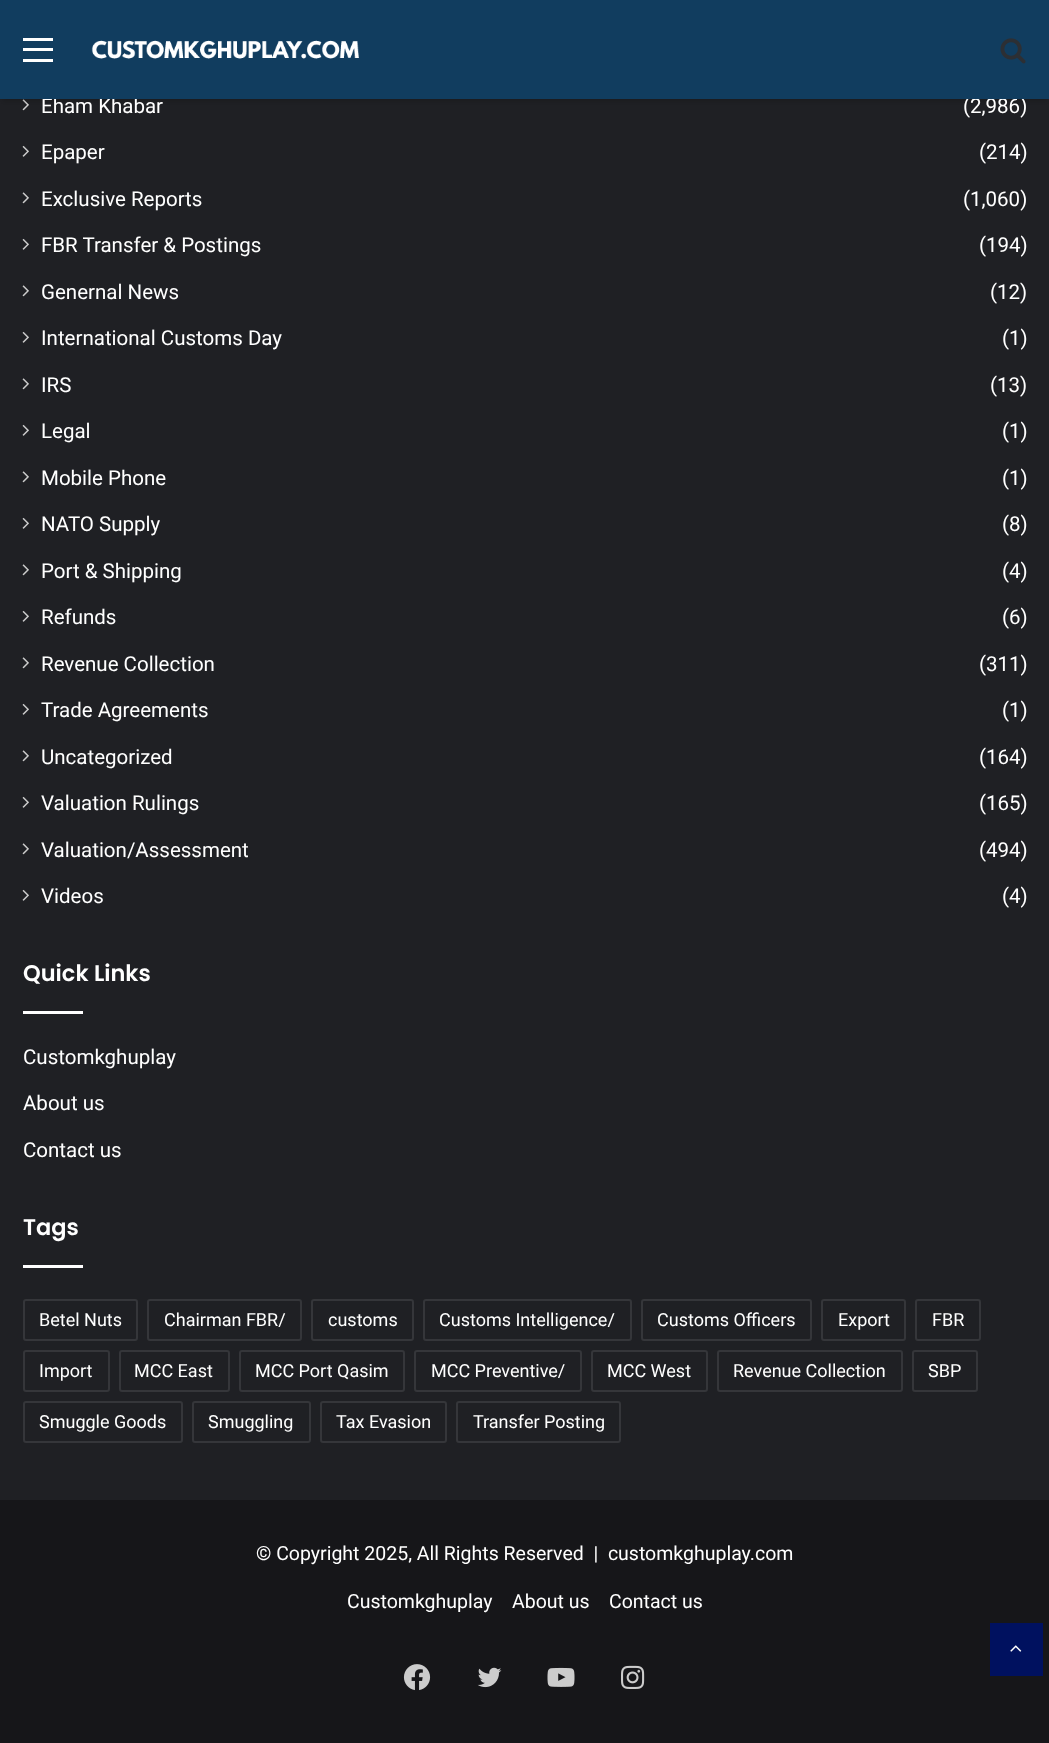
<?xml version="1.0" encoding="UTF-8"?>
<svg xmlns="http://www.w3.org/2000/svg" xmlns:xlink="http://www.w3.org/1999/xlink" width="1049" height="1743">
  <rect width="100%" height="100%" fill="#1f2024" />
  <image x="22" y="99" width="7" height="12" xlink:href="image3.png" />
  <rect x="3" y="9" width="1044" height="93" fill="#000000" fill-opacity="0.1" filter="blur(1.5px)" />
  <image x="22" y="145" width="7" height="12" xlink:href="image4.png" />
  <image x="22" y="192" width="7" height="12" xlink:href="image3.png" />
  <image x="22" y="238" width="7" height="12" xlink:href="image4.png" />
  <image x="22" y="285" width="7" height="12" xlink:href="image3.png" />
  <image x="22" y="331" width="7" height="12" xlink:href="image4.png" />
  <image x="22" y="378" width="7" height="12" xlink:href="image3.png" />
  <image x="22" y="424" width="7" height="12" xlink:href="image4.png" />
  <image x="22" y="471" width="7" height="12" xlink:href="image3.png" />
  <image x="22" y="517" width="7" height="12" xlink:href="image4.png" />
  <image x="22" y="564" width="7" height="12" xlink:href="image3.png" />
  <image x="22" y="610" width="7" height="12" xlink:href="image4.png" />
  <image x="22" y="657" width="7" height="12" xlink:href="image3.png" />
  <image x="22" y="703" width="7" height="12" xlink:href="image4.png" />
  <image x="22" y="750" width="7" height="12" xlink:href="image3.png" />
  <image x="22" y="796" width="7" height="12" xlink:href="image4.png" />
  <image x="22" y="843" width="7" height="12" xlink:href="image3.png" />
  <image x="22" y="889" width="7" height="12" xlink:href="image4.png" />
  <rect x="23" y="1011" width="60" height="3" fill="#ffffff" />
  <rect x="23" y="1265" width="60" height="3" fill="#ffffff" />
  <rect x="24" y="1300" width="113" height="40" rx="2" fill="none" stroke="#35363a" stroke-width="2" />
  <rect x="148" y="1300" width="153" height="40" rx="2" fill="none" stroke="#35363a" stroke-width="2" />
  <rect x="312" y="1300" width="101" height="40" rx="2" fill="none" stroke="#35363a" stroke-width="2" />
  <rect x="424" y="1300" width="207" height="40" rx="2" fill="none" stroke="#35363a" stroke-width="2" />
  <rect x="642" y="1300" width="169" height="40" rx="2" fill="none" stroke="#35363a" stroke-width="2" />
  <rect x="822" y="1300" width="83" height="40" rx="2" fill="none" stroke="#35363a" stroke-width="2" />
  <rect x="916" y="1300" width="64" height="40" rx="2" fill="none" stroke="#35363a" stroke-width="2" />
  <rect x="24" y="1351" width="85" height="40" rx="2" fill="none" stroke="#35363a" stroke-width="2" />
  <rect x="120" y="1351" width="109" height="40" rx="2" fill="none" stroke="#35363a" stroke-width="2" />
  <rect x="240" y="1351" width="164" height="40" rx="2" fill="none" stroke="#35363a" stroke-width="2" />
  <rect x="415" y="1351" width="166" height="40" rx="2" fill="none" stroke="#35363a" stroke-width="2" />
  <rect x="592" y="1351" width="115" height="40" rx="2" fill="none" stroke="#35363a" stroke-width="2" />
  <rect x="718" y="1351" width="184" height="40" rx="2" fill="none" stroke="#35363a" stroke-width="2" />
  <rect x="913" y="1351" width="64" height="40" rx="2" fill="none" stroke="#35363a" stroke-width="2" />
  <rect x="24" y="1402" width="158" height="40" rx="2" fill="none" stroke="#35363a" stroke-width="2" />
  <rect x="193" y="1402" width="117" height="40" rx="2" fill="none" stroke="#35363a" stroke-width="2" />
  <rect x="321" y="1402" width="125" height="40" rx="2" fill="none" stroke="#35363a" stroke-width="2" />
  <rect x="457" y="1402" width="163" height="40" rx="2" fill="none" stroke="#35363a" stroke-width="2" />
  <rect y="1500" width="1049" height="243" fill="#161619" />
  <image x="403" y="1664" width="28" height="27" xlink:href="image5.png" />
  <image x="477" y="1667" width="25" height="21" xlink:href="image6.png" />
  <image x="547" y="1667" width="28" height="20" xlink:href="image7.png" />
  <image x="621" y="1665" width="24" height="24" xlink:href="image8.png" />
  <rect x="990" y="1623" width="53" height="53" fill="#00115f" />
  <image x="1010" y="1645" width="12" height="7" xlink:href="image9.png" />
  <text x="41" y="113" style="font-family: Roboto; font-size: 20.5px; fill: #ffffff">Eham Khabar</text>
  <text x="963" y="113" style="font-family: Roboto; font-size: 20.5px; fill: #ffffff">(2,986)</text>
  <rect width="1049" height="99" fill="#113d5f" />
  <image x="1000" y="38" width="26" height="26" xlink:href="image2.png" />
  <rect x="23" y="59" width="30" height="3" fill="#ffffff" />
  <rect x="23" y="38" width="30" height="3" fill="#ffffff" />
  <rect x="23" y="48" width="30" height="3" fill="#ffffff" />
  <image x="91" y="40" width="268" height="19" xlink:href="image1.png" />
  <text x="41" y="159" style="font-family: Roboto; font-size: 20.5px; fill: #ffffff">Epaper</text>
  <text x="979" y="159" style="font-family: Roboto; font-size: 20.5px; fill: #ffffff">(214)</text>
  <text x="41" y="206" style="font-family: Roboto; font-size: 20.5px; fill: #ffffff">Exclusive Reports</text>
  <text x="963" y="206" style="font-family: Roboto; font-size: 20.5px; fill: #ffffff">(1,060)</text>
  <text x="41" y="252" style="font-family: Roboto; font-size: 20.5px; fill: #ffffff">FBR Transfer &amp; Postings</text>
  <text x="979" y="252" style="font-family: Roboto; font-size: 20.5px; fill: #ffffff">(194)</text>
  <text x="41" y="299" style="font-family: Roboto; font-size: 20.5px; fill: #ffffff">Genernal News</text>
  <text x="990" y="299" style="font-family: Roboto; font-size: 20.5px; fill: #ffffff">(12)</text>
  <text x="41" y="345" style="font-family: Roboto; font-size: 20.5px; fill: #ffffff">International Customs Day</text>
  <text x="1002" y="345" style="font-family: Roboto; font-size: 20.5px; fill: #ffffff">(1)</text>
  <text x="41" y="392" style="font-family: Roboto; font-size: 20.5px; fill: #ffffff">IRS</text>
  <text x="990" y="392" style="font-family: Roboto; font-size: 20.5px; fill: #ffffff">(13)</text>
  <text x="41" y="438" style="font-family: Roboto; font-size: 20.5px; fill: #ffffff">Legal</text>
  <text x="1002" y="438" style="font-family: Roboto; font-size: 20.5px; fill: #ffffff">(1)</text>
  <text x="41" y="485" style="font-family: Roboto; font-size: 20.5px; fill: #ffffff">Mobile Phone</text>
  <text x="1002" y="485" style="font-family: Roboto; font-size: 20.5px; fill: #ffffff">(1)</text>
  <text x="41" y="531" style="font-family: Roboto; font-size: 20.5px; fill: #ffffff">NATO Supply</text>
  <text x="1002" y="531" style="font-family: Roboto; font-size: 20.5px; fill: #ffffff">(8)</text>
  <text x="41" y="578" style="font-family: Roboto; font-size: 20.5px; fill: #ffffff">Port &amp; Shipping</text>
  <text x="1002" y="578" style="font-family: Roboto; font-size: 20.5px; fill: #ffffff">(4)</text>
  <text x="41" y="624" style="font-family: Roboto; font-size: 20.5px; fill: #ffffff">Refunds</text>
  <text x="1002" y="624" style="font-family: Roboto; font-size: 20.5px; fill: #ffffff">(6)</text>
  <text x="41" y="671" style="font-family: Roboto; font-size: 20.5px; fill: #ffffff">Revenue Collection</text>
  <text x="979" y="671" style="font-family: Roboto; font-size: 20.5px; fill: #ffffff">(311)</text>
  <text x="41" y="717" style="font-family: Roboto; font-size: 20.5px; fill: #ffffff">Trade Agreements</text>
  <text x="1002" y="717" style="font-family: Roboto; font-size: 20.5px; fill: #ffffff">(1)</text>
  <text x="41" y="764" style="font-family: Roboto; font-size: 20.5px; fill: #ffffff">Uncategorized</text>
  <text x="979" y="764" style="font-family: Roboto; font-size: 20.5px; fill: #ffffff">(164)</text>
  <text x="41" y="810" style="font-family: Roboto; font-size: 20.5px; fill: #ffffff">Valuation Rulings</text>
  <text x="979" y="810" style="font-family: Roboto; font-size: 20.5px; fill: #ffffff">(165)</text>
  <text x="41" y="857" style="font-family: Roboto; font-size: 20.5px; fill: #ffffff">Valuation/Assessment</text>
  <text x="979" y="857" style="font-family: Roboto; font-size: 20.5px; fill: #ffffff">(494)</text>
  <text x="41" y="903" style="font-family: Roboto; font-size: 20.5px; fill: #ffffff">Videos</text>
  <text x="1002" y="903" style="font-family: Roboto; font-size: 20.5px; fill: #ffffff">(4)</text>
  <text x="23" y="981" style="font-family: Poppins; font-size: 22.5px; font-weight: 600; fill: #ffffff">Quick Links</text>
  <text x="23" y="1064" style="font-family: Roboto; font-size: 20.5px; fill: #ffffff">Customkghuplay</text>
  <text x="23" y="1110" style="font-family: Roboto; font-size: 20.5px; fill: #ffffff">About us</text>
  <text x="23" y="1157" style="font-family: Roboto; font-size: 20.5px; fill: #ffffff">Contact us</text>
  <text x="23" y="1235" style="font-family: Poppins; font-size: 22.5px; font-weight: 600; fill: #ffffff">Tags</text>
  <text x="39" y="1326" style="font-family: Roboto; font-size: 18px; fill: #ffffff">Betel Nuts</text>
  <text x="164" y="1326" style="font-family: Roboto; font-size: 18px; fill: #ffffff">Chairman FBR/</text>
  <text x="328" y="1326" style="font-family: Roboto; font-size: 18px; fill: #ffffff">customs</text>
  <text x="439" y="1326" style="font-family: Roboto; font-size: 18px; fill: #ffffff">Customs Intelligence/</text>
  <text x="657" y="1326" style="font-family: Roboto; font-size: 18px; fill: #ffffff">Customs Officers</text>
  <text x="838" y="1326" style="font-family: Roboto; font-size: 18px; fill: #ffffff">Export</text>
  <text x="932" y="1326" style="font-family: Roboto; font-size: 18px; fill: #ffffff">FBR</text>
  <text x="39" y="1377" style="font-family: Roboto; font-size: 18px; fill: #ffffff">Import</text>
  <text x="134" y="1377" style="font-family: Roboto; font-size: 18px; fill: #ffffff">MCC East</text>
  <text x="255" y="1377" style="font-family: Roboto; font-size: 18px; fill: #ffffff">MCC Port Qasim</text>
  <text x="431" y="1377" style="font-family: Roboto; font-size: 18px; fill: #ffffff">MCC Preventive/</text>
  <text x="607" y="1377" style="font-family: Roboto; font-size: 18px; fill: #ffffff">MCC West</text>
  <text x="733" y="1377" style="font-family: Roboto; font-size: 18px; fill: #ffffff">Revenue Collection</text>
  <text x="928" y="1377" style="font-family: Roboto; font-size: 18px; fill: #ffffff">SBP</text>
  <text x="39" y="1428" style="font-family: Roboto; font-size: 18px; fill: #ffffff">Smuggle Goods</text>
  <text x="208" y="1428" style="font-family: Roboto; font-size: 18px; fill: #ffffff">Smuggling</text>
  <text x="336" y="1428" style="font-family: Roboto; font-size: 18px; fill: #ffffff">Tax Evasion</text>
  <text x="473" y="1428" style="font-family: Roboto; font-size: 18px; fill: #ffffff">Transfer Posting</text>
  <text x="256" y="1560" style="font-family: Roboto; font-size: 19.5px; fill: #ffffff" xml:space="preserve">© Copyright 2025, All Rights Reserved  |  customkghuplay.com</text>
  <text x="347" y="1608" style="font-family: Roboto; font-size: 19.5px; fill: #ffffff">Customkghuplay</text>
  <text x="512" y="1608" style="font-family: Roboto; font-size: 19.5px; fill: #ffffff">About us</text>
  <text x="609" y="1608" style="font-family: Roboto; font-size: 19.5px; fill: #ffffff">Contact us</text>
</svg>
